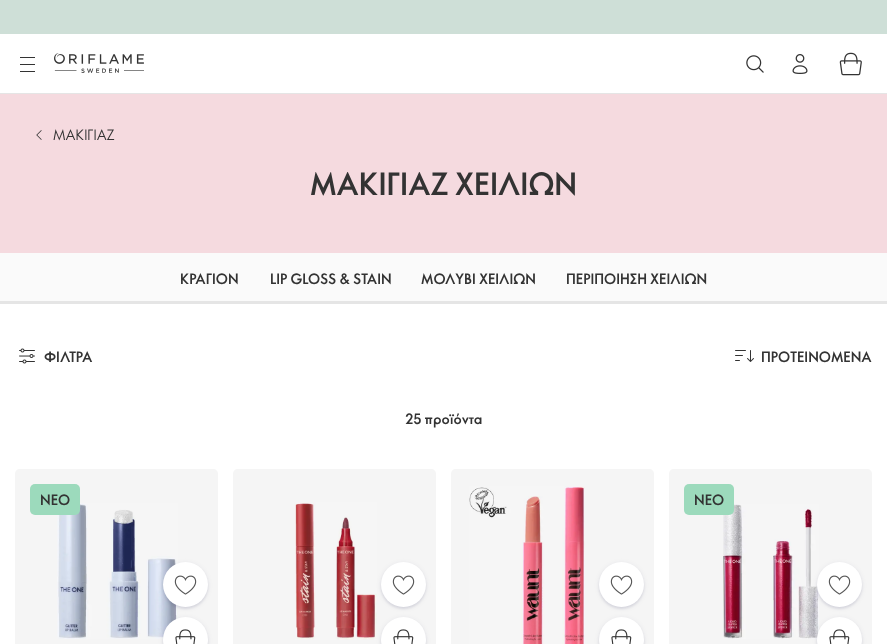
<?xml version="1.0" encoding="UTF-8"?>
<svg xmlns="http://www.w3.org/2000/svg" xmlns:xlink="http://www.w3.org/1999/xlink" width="887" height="644">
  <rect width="100%" height="100%" fill="#ffffff" />
  <rect y="93" width="887" height="1" fill="#e5e5e5" />
  <rect width="887" height="34" fill="#cedfd7" />
  <rect x="20" y="57" width="15" height="1" fill="#333333" />
  <rect x="20" y="64" width="15" height="1" fill="#333333" />
  <rect x="20" y="71" width="15" height="1" fill="#333333" />
  <image x="54" y="53" width="90" height="20" xlink:href="image1.png" />
  <image x="746" y="55" width="18" height="18" xlink:href="image2.png" />
  <image x="792" y="54" width="16" height="20" xlink:href="image3.png" />
  <image x="839" y="52" width="23" height="24" xlink:href="image4.png" />
  <rect y="94" width="887" height="159" fill="#f5dadf" />
  <image x="36" y="130" width="6" height="10" xlink:href="image5.png" />
  <rect y="253" width="887" height="48" fill="#fafafa" />
  <rect y="301" width="887" height="3" fill="#e5e5e5" />
  <image x="19" y="348" width="16" height="16" xlink:href="image6.png" />
  <image x="735" y="350" width="19" height="12" xlink:href="image7.png" />
  <path d="M 20 469 h 193 c 3 0 5 2 5 5 v 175 h -203 v -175 c 0 -3 2 -5 5 -5 z" fill="#f5f5f5" />
  <image x="57" y="503" width="121" height="136" xlink:href="image8.png" />
  <rect x="30" y="484" width="50" height="31" rx="5" fill="#9cdabc" />
  <rect x="163" y="563" width="45" height="45" rx="22.5" fill="#000042" fill-opacity="0.08" filter="blur(2.5px)" />
  <rect x="163" y="564" width="45" height="45" rx="22.5" fill="#000042" fill-opacity="0.08" filter="blur(1px)" />
  <circle cx="185.5" cy="584.5" r="22.5" fill="#ffffff" />
  <image x="174" y="575" width="23" height="20" xlink:href="image9.png" />
  <rect x="163" y="618" width="45" height="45" rx="22.5" fill="#000042" fill-opacity="0.08" filter="blur(2.5px)" />
  <rect x="163" y="619" width="45" height="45" rx="22.5" fill="#000042" fill-opacity="0.08" filter="blur(1px)" />
  <circle cx="185.5" cy="639.5" r="22.5" fill="#ffffff" />
  <image x="175" y="629" width="21" height="15" xlink:href="image10.png" />
  <path d="M 238 469 h 193 c 3 0 5 2 5 5 v 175 h -203 v -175 c 0 -3 2 -5 5 -5 z" fill="#f5f5f5" />
  <image x="295" y="502" width="82" height="138" xlink:href="image11.png" />
  <rect x="381" y="563" width="45" height="45" rx="22.5" fill="#000042" fill-opacity="0.08" filter="blur(2.5px)" />
  <rect x="381" y="564" width="45" height="45" rx="22.5" fill="#000042" fill-opacity="0.08" filter="blur(1px)" />
  <circle cx="403.5" cy="584.5" r="22.5" fill="#ffffff" />
  <image x="392" y="575" width="23" height="20" xlink:href="image9.png" />
  <rect x="381" y="618" width="45" height="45" rx="22.5" fill="#000042" fill-opacity="0.08" filter="blur(2.5px)" />
  <rect x="381" y="619" width="45" height="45" rx="22.5" fill="#000042" fill-opacity="0.08" filter="blur(1px)" />
  <circle cx="403.5" cy="639.5" r="22.5" fill="#ffffff" />
  <image x="393" y="629" width="21" height="15" xlink:href="image10.png" />
  <path d="M 456 469 h 193 c 3 0 5 2 5 5 v 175 h -203 v -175 c 0 -3 2 -5 5 -5 z" fill="#f5f5f5" />
  <image x="469" y="486" width="116" height="158" xlink:href="image12.png" />
  <rect x="599" y="563" width="45" height="45" rx="22.5" fill="#000042" fill-opacity="0.08" filter="blur(2.5px)" />
  <rect x="599" y="564" width="45" height="45" rx="22.5" fill="#000042" fill-opacity="0.08" filter="blur(1px)" />
  <circle cx="621.5" cy="584.5" r="22.5" fill="#ffffff" />
  <image x="610" y="575" width="23" height="20" xlink:href="image9.png" />
  <rect x="599" y="618" width="45" height="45" rx="22.5" fill="#000042" fill-opacity="0.08" filter="blur(2.5px)" />
  <rect x="599" y="619" width="45" height="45" rx="22.5" fill="#000042" fill-opacity="0.08" filter="blur(1px)" />
  <circle cx="621.5" cy="639.5" r="22.5" fill="#ffffff" />
  <image x="611" y="629" width="21" height="15" xlink:href="image10.png" />
  <path d="M 674 469 h 193 c 3 0 5 2 5 5 v 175 h -203 v -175 c 0 -3 2 -5 5 -5 z" fill="#f5f5f5" />
  <image x="723" y="504" width="96" height="135" xlink:href="image13.png" />
  <rect x="684" y="484" width="50" height="31" rx="5" fill="#9cdabc" />
  <rect x="817" y="563" width="45" height="45" rx="22.5" fill="#000042" fill-opacity="0.08" filter="blur(2.5px)" />
  <rect x="817" y="564" width="45" height="45" rx="22.5" fill="#000042" fill-opacity="0.08" filter="blur(1px)" />
  <circle cx="839.5" cy="584.5" r="22.5" fill="#ffffff" />
  <image x="828" y="575" width="23" height="20" xlink:href="image9.png" />
  <rect x="817" y="618" width="45" height="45" rx="22.5" fill="#000042" fill-opacity="0.08" filter="blur(2.5px)" />
  <rect x="817" y="619" width="45" height="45" rx="22.5" fill="#000042" fill-opacity="0.08" filter="blur(1px)" />
  <circle cx="839.5" cy="639.5" r="22.5" fill="#ffffff" />
  <image x="829" y="629" width="21" height="15" xlink:href="image10.png" />
  <text x="53" y="140" style="font-family: 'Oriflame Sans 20'; font-size: 14px; fill: #333333">ΜΑΚΙΓΙΑΖ</text>
  <text x="310" y="195" style="font-family: 'Oriflame Sans 20'; font-size: 30px; font-weight: bold; fill: #333333">ΜΑΚΙΓΙΑΖ ΧΕΙΛΙΩΝ</text>
  <text x="180" y="284" style="font-family: 'Oriflame Sans 20'; font-size: 14px; font-weight: bold; fill: #333333">ΚΡΑΓΙΟΝ</text>
  <text x="270" y="284" style="font-family: 'Oriflame Sans 20'; font-size: 14px; font-weight: bold; fill: #333333">LIP GLOSS &amp; STAIN</text>
  <text x="421" y="284" style="font-family: 'Oriflame Sans 20'; font-size: 14px; font-weight: bold; fill: #333333">ΜΟΛΥΒΙ ΧΕΙΛΙΩΝ</text>
  <text x="566" y="284" style="font-family: 'Oriflame Sans 20'; font-size: 14px; font-weight: bold; fill: #333333">ΠΕΡΙΠΟΙΗΣΗ ΧΕΙΛΙΩΝ</text>
  <text x="44" y="362" style="font-family: 'Oriflame Sans 20'; font-size: 14px; font-weight: bold; fill: #333333">ΦΙΛΤΡΑ</text>
  <text x="761" y="362" style="font-family: 'Oriflame Sans 20'; font-size: 14px; font-weight: bold; fill: #333333">ΠΡΟΤΕΙΝΟΜΕΝΑ</text>
  <text x="405" y="424" style="font-family: 'Oriflame Sans 20'; font-size: 14px; font-weight: bold; fill: #333333">25 προϊόντα</text>
  <text x="40" y="505" style="font-family: 'Oriflame Sans 20'; font-size: 14px; font-weight: bold; fill: #333333">ΝΕΟ</text>
  <text x="694" y="505" style="font-family: 'Oriflame Sans 20'; font-size: 14px; font-weight: bold; fill: #333333">ΝΕΟ</text>
</svg>
